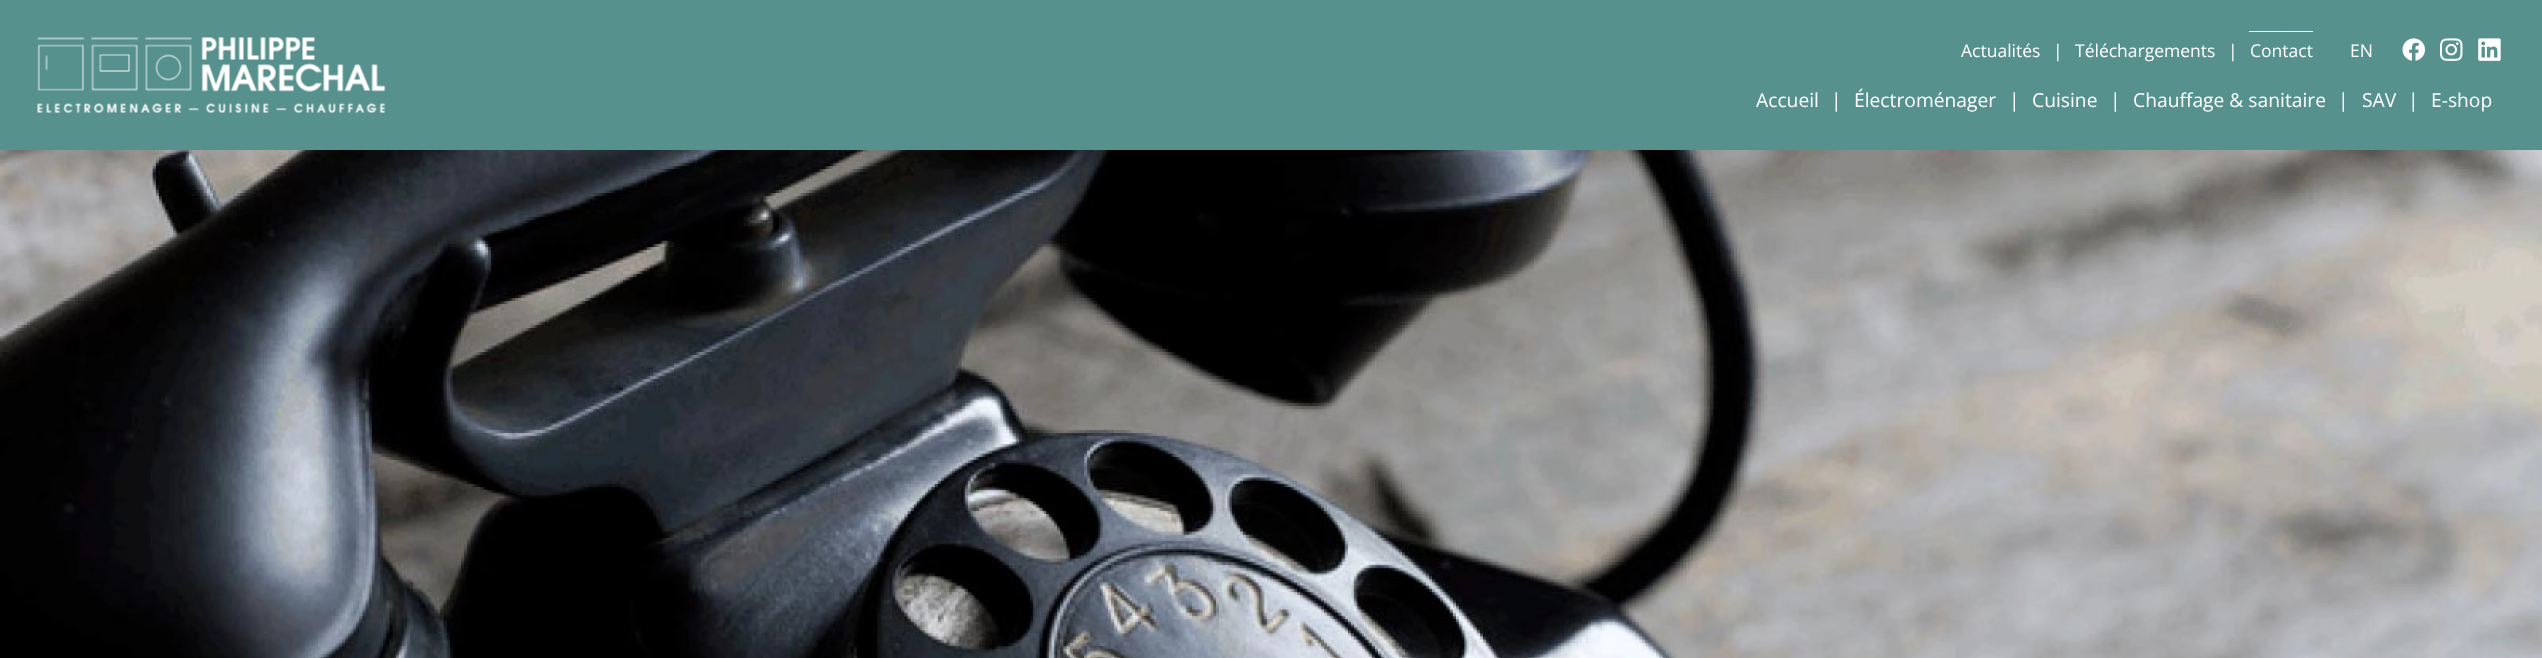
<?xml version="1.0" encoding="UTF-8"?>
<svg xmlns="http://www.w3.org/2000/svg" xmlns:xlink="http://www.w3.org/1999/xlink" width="2542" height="658">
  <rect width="100%" height="100%" fill="#ffffff" />
  <rect width="2542" height="150" fill="#56918d" />
  <image x="37" y="37" width="349" height="76" xlink:href="image1.png" />
  <rect x="2249" y="31" width="64" height="1" fill="#ffffff" />
  <image x="2402" y="38" width="23" height="23" xlink:href="image2.png" />
  <image x="2440" y="38" width="23" height="23" xlink:href="image3.png" />
  <image x="2478" y="38" width="23" height="23" xlink:href="image4.png" />
  <image x="0" y="150" width="2542" height="508" xlink:href="image5.png" />
  <text x="1961" y="57" style="font-family: Open Sans; font-size: 17.5px; fill: #ffffff">Actualités</text>
  <text x="2053" y="57" style="font-family: Open Sans; font-size: 17.5px; fill: #ffffff">|</text>
  <text x="2075" y="57" style="font-family: Open Sans; font-size: 17.5px; fill: #ffffff">Téléchargements</text>
  <text x="2228" y="57" style="font-family: Open Sans; font-size: 17.5px; fill: #ffffff">|</text>
  <text x="2250" y="57" style="font-family: Open Sans; font-size: 17.5px; fill: #ffffff">Contact</text>
  <text x="2350" y="57" style="font-family: Open Sans; font-size: 17.5px; fill: #ffffff">EN</text>
  <text x="1756" y="107" style="font-family: Open Sans; font-size: 19.25px; fill: #ffffff">Accueil</text>
  <text x="1831" y="107" style="font-family: Open Sans; font-size: 19.25px; fill: #ffffff">|</text>
  <text x="1854" y="107" style="font-family: Open Sans; font-size: 19.25px; fill: #ffffff">Électroménager</text>
  <text x="2009" y="107" style="font-family: Open Sans; font-size: 19.25px; fill: #ffffff">|</text>
  <text x="2032" y="107" style="font-family: Open Sans; font-size: 19.25px; fill: #ffffff">Cuisine</text>
  <text x="2110" y="107" style="font-family: Open Sans; font-size: 19.25px; fill: #ffffff">|</text>
  <text x="2133" y="107" style="font-family: Open Sans; font-size: 19.25px; fill: #ffffff">Chauffage &amp; sanitaire</text>
  <text x="2338" y="107" style="font-family: Open Sans; font-size: 19.25px; fill: #ffffff">|</text>
  <text x="2362" y="107" style="font-family: Open Sans; font-size: 19.25px; fill: #ffffff">SAV</text>
  <text x="2408" y="107" style="font-family: Open Sans; font-size: 19.25px; fill: #ffffff">|</text>
  <text x="2431" y="107" style="font-family: Open Sans; font-size: 19.25px; fill: #ffffff">E-shop</text>
</svg>
